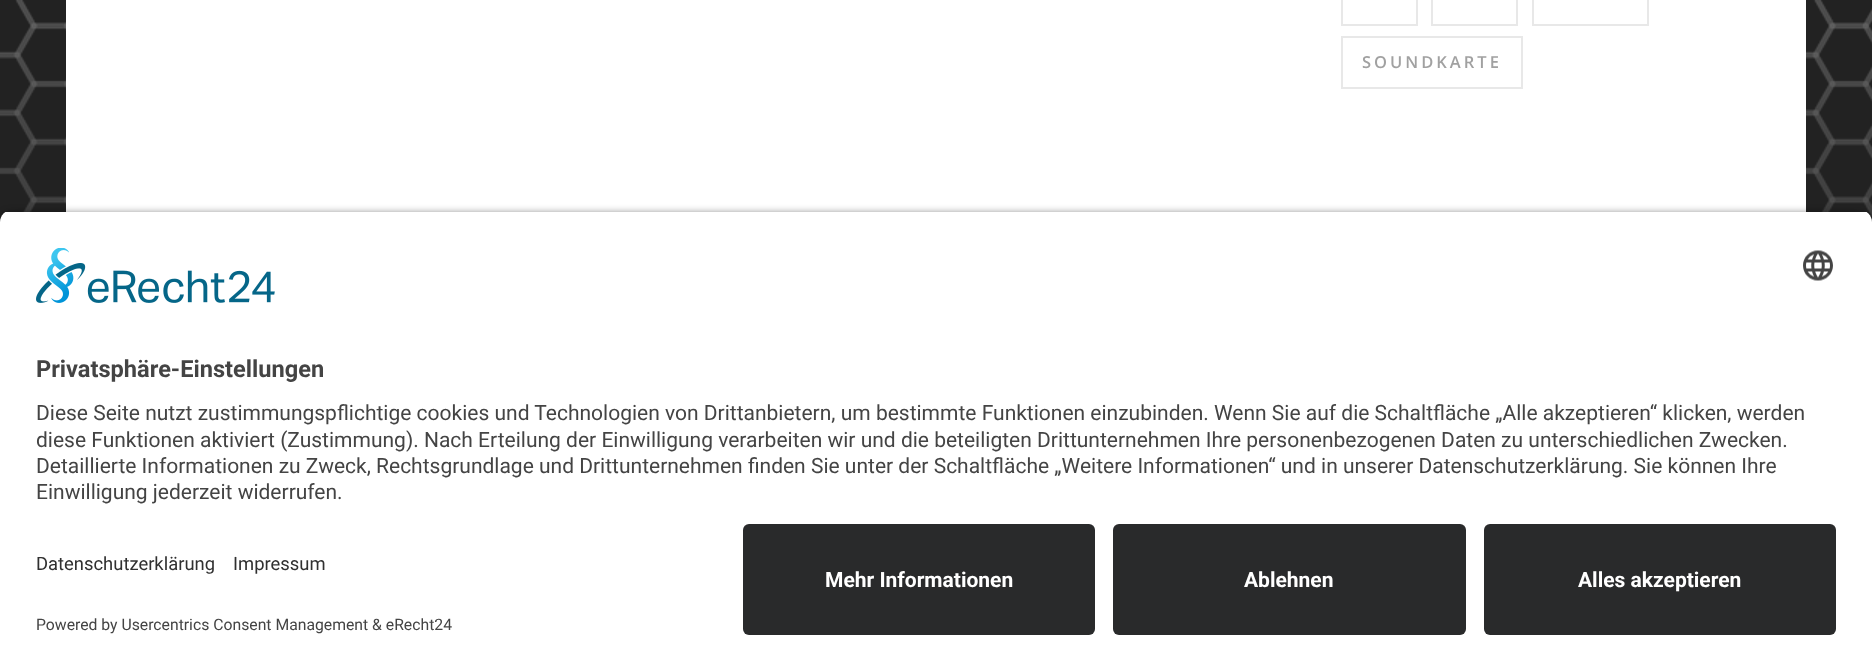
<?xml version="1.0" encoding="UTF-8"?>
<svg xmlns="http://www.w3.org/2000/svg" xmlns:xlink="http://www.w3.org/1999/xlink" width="1872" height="670">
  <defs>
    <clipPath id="clip1"><path d="M 12 210 h 1848 c 6.5 0 12 5.5 12 12 v 290 h -1872 v -290 c 0 -6.5 5.5 -12 12 -12 z" /></clipPath>
  </defs>
  <rect width="100%" height="100%" fill="#222222" />
  <image x="0" y="0" width="1872" height="217" xlink:href="image1.png" />
  <rect x="66" width="1740" height="212" fill="#ffffff" />
  <rect x="1342" y="-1" width="75" height="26" fill="none" stroke="#e8e8e8" stroke-width="2" />
  <rect x="1432" y="-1" width="85" height="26" fill="none" stroke="#e8e8e8" stroke-width="2" />
  <rect x="1533" y="-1" width="115" height="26" fill="none" stroke="#e8e8e8" stroke-width="2" />
  <rect x="1342" y="37" width="180" height="51" fill="none" stroke="#e8e8e8" stroke-width="2" />
  <rect y="215" width="1872" height="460" rx="12" fill="#000000" fill-opacity="0.8" filter="blur(5px)" />
  <g clip-path="url(#clip1)">
    <rect y="212" width="1872" height="300" fill="#ffffff" />
  </g>
  <image x="36" y="248" width="239" height="55" xlink:href="image2.png" />
  <image x="1803" y="250" width="30" height="31" xlink:href="image3.png" />
  <rect y="512" width="1872" height="158" fill="#ffffff" />
  <rect x="743" y="524" width="352" height="111" rx="6" fill="#292a2b" />
  <rect x="1113" y="524" width="353" height="111" rx="6" fill="#292a2b" />
  <rect x="1484" y="524" width="352" height="111" rx="6" fill="#292a2b" />
  <text x="1362" y="68" style="font-family: Open Sans; font-size: 16.5px; font-weight: 600; letter-spacing: 3px; fill: #a1a1a1">SOUNDKARTE</text>
  <text x="36" y="377" style="font-family: Roboto; font-size: 23.6px; font-weight: bold; fill: #444444">Privatsphäre-Einstellungen</text>
  <text x="36" y="420" style="font-family: Roboto; font-size: 21px; fill: #444444">Diese Seite nutzt zustimmungspflichtige cookies und Technologien von Drittanbietern, um bestimmte Funktionen einzubinden. Wenn Sie auf die Schaltfläche „Alle akzeptieren“ klicken, werden</text>
  <text x="36" y="447" style="font-family: Roboto; font-size: 21px; fill: #444444">diese Funktionen aktiviert (Zustimmung). Nach Erteilung der Einwilligung verarbeiten wir und die beteiligten Drittunternehmen Ihre personenbezogenen Daten zu unterschiedlichen Zwecken.</text>
  <text x="36" y="473" style="font-family: Roboto; font-size: 21px; fill: #444444">Detaillierte Informationen zu Zweck, Rechtsgrundlage und Drittunternehmen finden Sie unter der Schaltfläche „Weitere Informationen“ und in unserer Datenschutzerklärung. Sie können Ihre</text>
  <text x="36" y="499" style="font-family: Roboto; font-size: 21px; fill: #444444">Einwilligung jederzeit widerrufen.</text>
  <text x="36" y="570" style="font-family: Roboto; font-size: 18.4px; fill: #303030">Datenschutzerklärung</text>
  <text x="233" y="570" style="font-family: Roboto; font-size: 18.4px; fill: #303030">Impressum</text>
  <text x="36" y="630" style="font-family: Roboto; font-size: 15.75px; fill: #444444">Powered by Usercentrics Consent Management &amp; eRecht24</text>
  <text x="825" y="587" style="font-family: Roboto; font-size: 21px; font-weight: bold; fill: #ffffff">Mehr Informationen</text>
  <text x="1244" y="587" style="font-family: Roboto; font-size: 21px; font-weight: bold; fill: #ffffff">Ablehnen</text>
  <text x="1578" y="587" style="font-family: Roboto; font-size: 21px; font-weight: bold; fill: #ffffff">Alles akzeptieren</text>
</svg>
